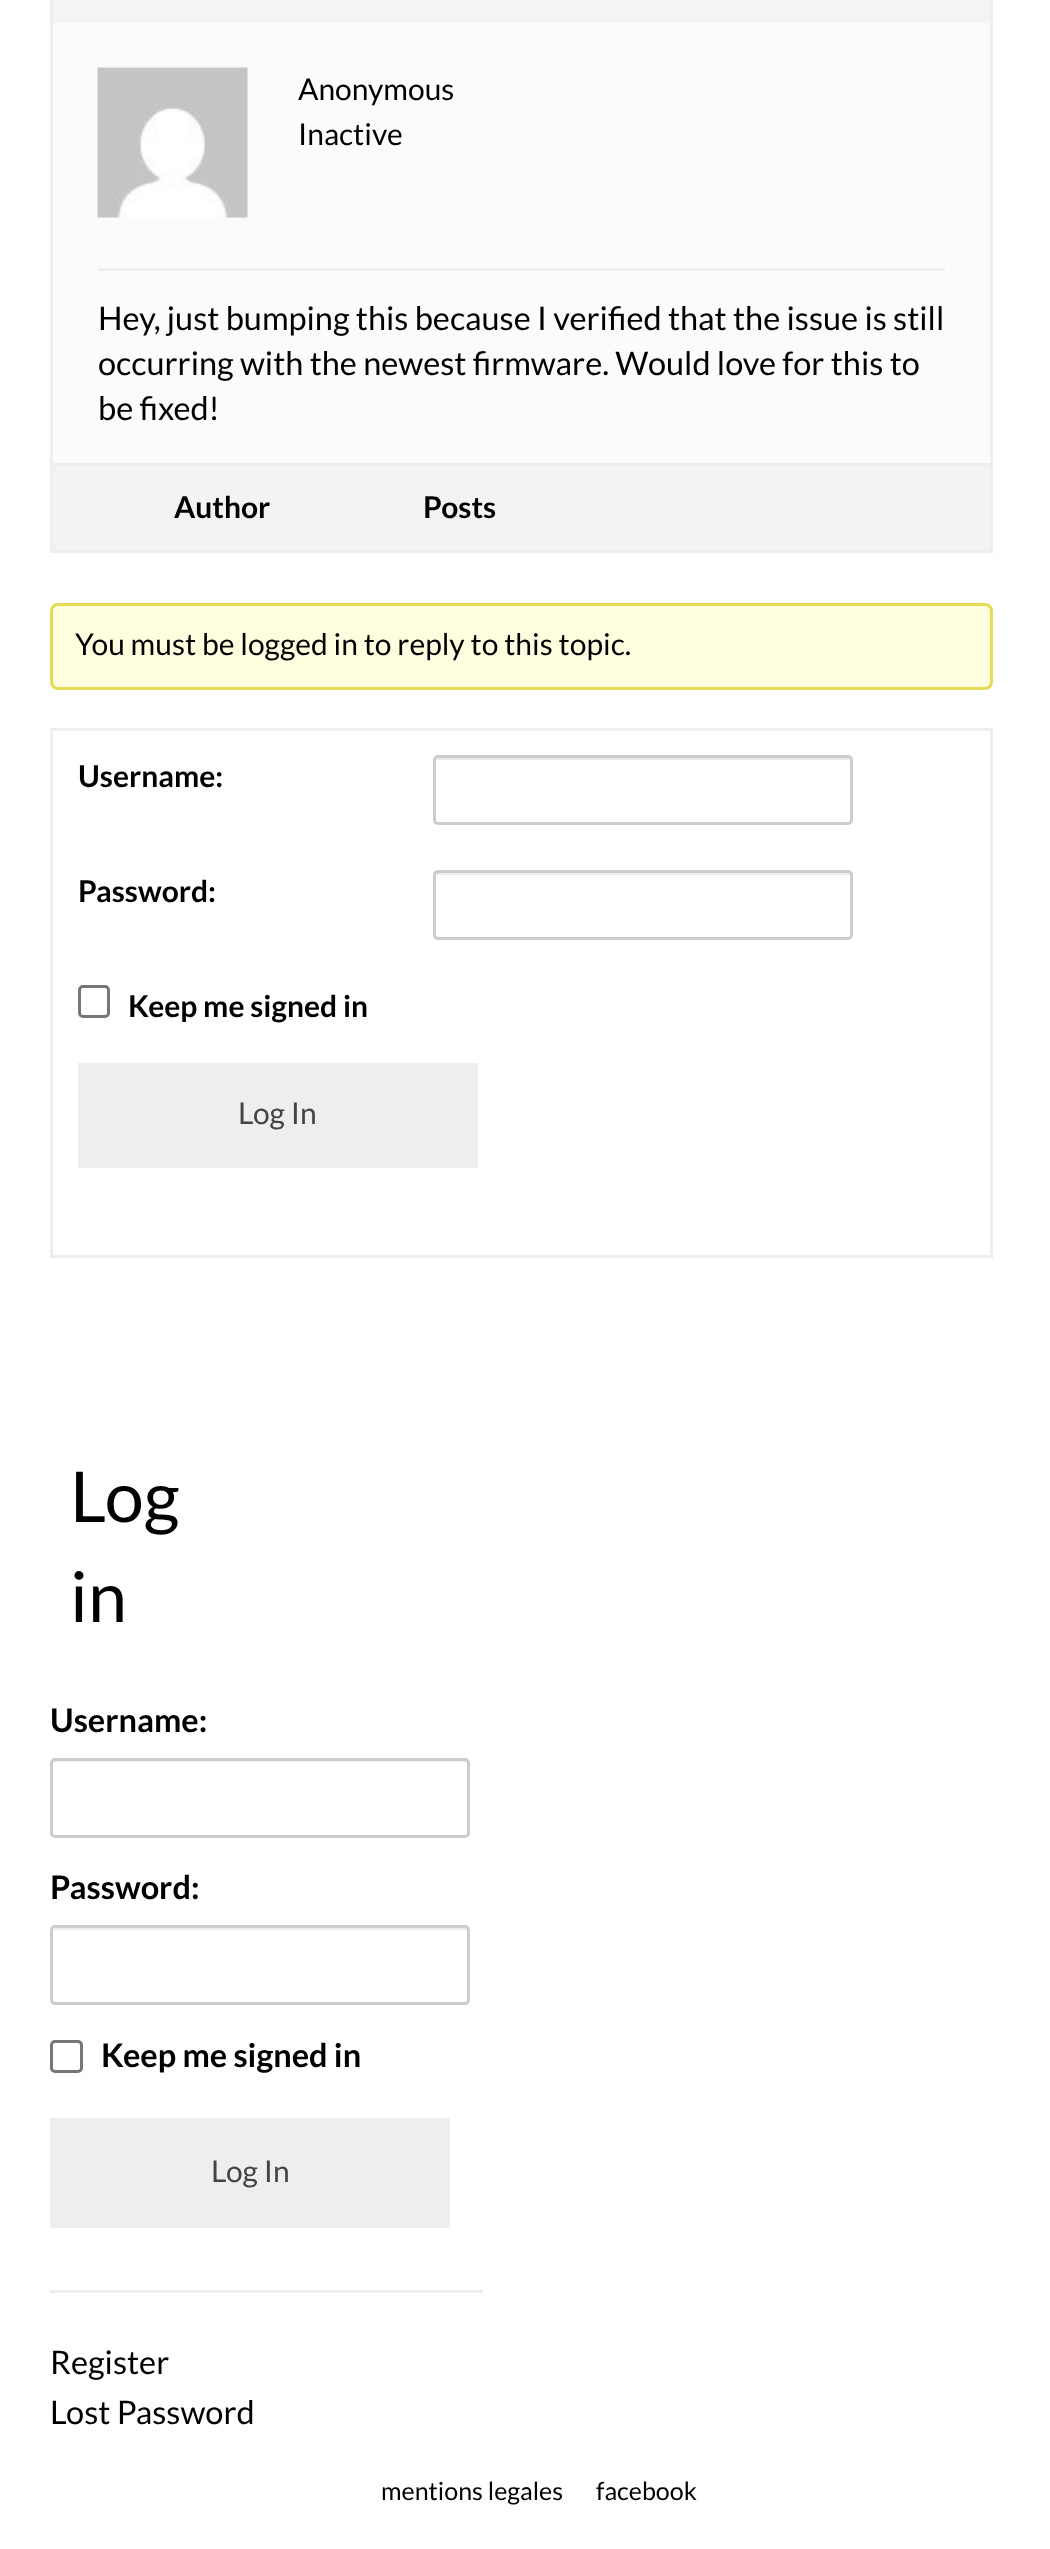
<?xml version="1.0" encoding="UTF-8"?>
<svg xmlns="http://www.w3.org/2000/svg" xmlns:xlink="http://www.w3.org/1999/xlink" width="1050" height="2549">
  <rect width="100%" height="100%" fill="#ffffff" />
  <rect x="51.5" y="-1.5" width="940" height="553" fill="none" stroke="#eeeeee" stroke-width="3" />
  <rect x="53" width="937" height="23" fill="#f4f4f4" />
  <rect x="53" y="23" width="937" height="440" fill="#fbfbfb" />
  <rect x="98" y="268" width="847" height="3" fill="#efefef" />
  <image x="97" y="67" width="151" height="151" xlink:href="image1.png" />
  <rect x="53" y="466" width="937" height="84" fill="#f3f3f3" />
  <rect x="53" y="463" width="937" height="3" fill="#eeeeee" />
  <rect x="51.5" y="604.5" width="940" height="84" rx="6.5" fill="#ffffe0" stroke="#e6db55" stroke-width="3" />
  <rect x="51.5" y="729.5" width="940" height="527" fill="none" stroke="#eeeeee" stroke-width="3" />
  <path d="M 438 760 h 410 c 1 0 2 1 2 2 c 0 -2 0 -4 -2 -4 h -410 l -3 1 v 3 c 0 -1 1 -2 3 -2 z" fill="#ececec" />
  <rect x="434.5" y="756.5" width="417" height="67" rx="3.5" fill="none" stroke="#cccccc" stroke-width="3" />
  <path d="M 438 875 h 410 c 1 0 2 1 2 3 c 0 -2 0 -5 -2 -5 h -410 c -3 0 -3 3 -3 5 c 0 -2 1 -3 3 -3 z" fill="#ececec" />
  <rect x="434.5" y="871.5" width="417" height="67" rx="3.5" fill="none" stroke="#cccccc" stroke-width="3" />
  <rect x="79.5" y="986.5" width="29" height="30" rx="3.5" fill="none" stroke="#767676" stroke-width="3" />
  <rect x="78" y="1063" width="400" height="105" fill="#eeeeee" />
  <path d="M 55 1762 h 410 c 1 0 3 2 3 3 c 0 -2 0 -5 -2 -5 h -410 c -2 0 -3 2 -3 3 z" fill="#ececec" />
  <rect x="51.5" y="1759.5" width="417" height="77" rx="3.5" fill="none" stroke="#cccccc" stroke-width="3" />
  <path d="M 55 1930 h 410 c 1 0 3 1 3 2 c 0 -2 0 -4 -2 -4 h -410 c -2 0 -3 1 -3 3 z" fill="#ececec" />
  <rect x="51.5" y="1926.5" width="417" height="77" rx="3.5" fill="none" stroke="#cccccc" stroke-width="3" />
  <rect x="51.5" y="2041.5" width="30" height="30" rx="3.5" fill="none" stroke="#767676" stroke-width="3" />
  <rect x="50" y="2118" width="400" height="110" fill="#eeeeee" />
  <rect x="50" y="2290" width="433" height="3" fill="#eeeeee" />
  <text x="298" y="100" style="font-family: Lato; font-size: 30px; fill: #000000">Anonymous</text>
  <text x="298" y="145" style="font-family: Lato; font-size: 30px; fill: #000000">Inactive</text>
  <text x="98" y="330" style="font-family: Lato; font-size: 32.5px; fill: #000000">Hey, just bumping this because I verified that the issue is still</text>
  <text x="98" y="375" style="font-family: Lato; font-size: 32.5px; fill: #000000">occurring with the newest firmware. Would love for this to</text>
  <text x="98" y="420" style="font-family: Lato; font-size: 32.5px; fill: #000000">be fixed!</text>
  <text x="174" y="518" style="font-family: Lato; font-size: 30px; font-weight: bold; fill: #000000">Author</text>
  <text x="423" y="518" style="font-family: Lato; font-size: 30px; font-weight: bold; fill: #000000">Posts</text>
  <text x="75" y="655" style="font-family: Lato; font-size: 30px; fill: #000000">You must be logged in to reply to this topic.</text>
  <text x="78" y="787" style="font-family: Lato; font-size: 30px; font-weight: bold; fill: #000000">Username:</text>
  <text x="78" y="902" style="font-family: Lato; font-size: 30px; font-weight: bold; fill: #000000">Password:</text>
  <text x="128" y="1017" style="font-family: Lato; font-size: 30px; font-weight: bold; fill: #000000">Keep me signed in</text>
  <text x="238" y="1124" style="font-family: Lato; font-size: 30px; fill: #444444">Log In</text>
  <text x="70" y="1522" style="font-family: Lato; font-size: 70px; fill: #000000">Log</text>
  <text x="70" y="1622" style="font-family: Lato; font-size: 70px; fill: #000000">in</text>
  <text x="50" y="1732" style="font-family: Lato; font-size: 32.5px; font-weight: bold; fill: #000000">Username:</text>
  <text x="50" y="1899" style="font-family: Lato; font-size: 32.5px; font-weight: bold; fill: #000000">Password:</text>
  <text x="101" y="2067" style="font-family: Lato; font-size: 32.5px; font-weight: bold; fill: #000000">Keep me signed in</text>
  <text x="211" y="2182" style="font-family: Lato; font-size: 30px; fill: #444444">Log In</text>
  <text x="50" y="2374" style="font-family: Lato; font-size: 32.5px; fill: #000000">Register</text>
  <text x="50" y="2424" style="font-family: Lato; font-size: 32.5px; fill: #000000">Lost Password</text>
  <text x="381" y="2500" style="font-family: Lato; font-size: 25px; fill: #000000">mentions legales</text>
  <text x="596" y="2500" style="font-family: Lato; font-size: 25px; fill: #000000">facebook</text>
</svg>
